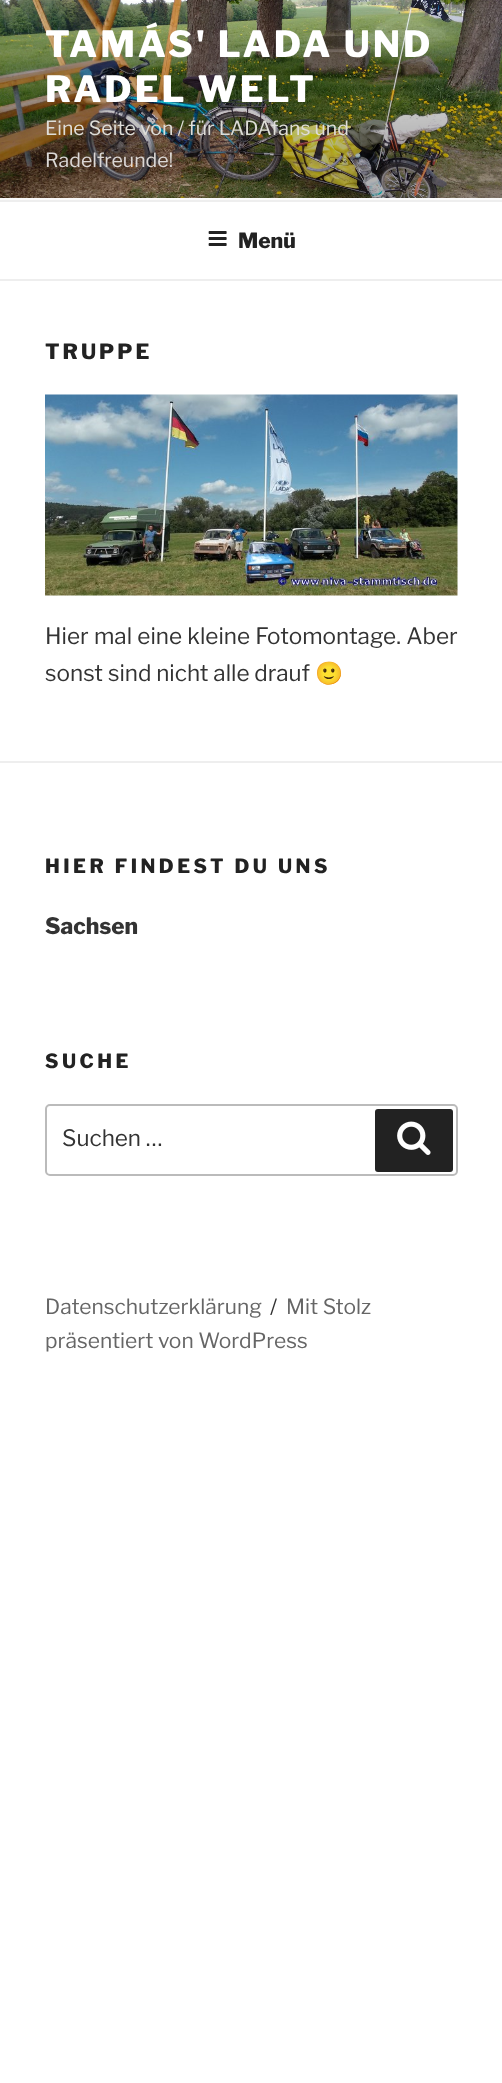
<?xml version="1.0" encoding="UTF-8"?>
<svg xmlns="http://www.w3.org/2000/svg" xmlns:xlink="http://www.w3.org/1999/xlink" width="502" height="2083">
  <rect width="100%" height="100%" fill="#ffffff" />
  <rect y="198" width="502" height="2" fill="#fafafa" />
  <image x="0" y="0" width="502" height="198" xlink:href="image1.png" />
  <rect y="200" width="502" height="2" fill="#eeeeee" />
  <rect y="279" width="502" height="2" fill="#eeeeee" />
  <image x="208" y="231" width="19" height="15" xlink:href="image2.png" />
  <image x="45" y="394" width="413" height="202" xlink:href="image3.png" />
  <rect y="761" width="502" height="2" fill="#eeeeee" />
  <rect x="46" y="1105" width="411" height="70" rx="4" fill="none" stroke="#bbbbbb" stroke-width="2" />
  <rect x="375" y="1109" width="78" height="63" rx="3" fill="#222222" />
  <image x="397" y="1121" width="34" height="34" xlink:href="image4.png" />
  <text x="45" y="57" style="font-family: Libre Franklin; font-size: 36px; font-weight: 100; letter-spacing: 2.9px; fill: #ffffff">TAMÁS' LADA UND</text>
  <text x="45" y="102" style="font-family: Libre Franklin; font-size: 36px; font-weight: 100; letter-spacing: 2.9px; fill: #ffffff">RADEL WELT</text>
  <text x="45" y="135" style="font-family: 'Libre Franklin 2'; font-size: 19.5px; font-weight: 100; fill: #deddd8">Eine Seite von / für LADAfans und</text>
  <text x="45" y="167" style="font-family: 'Libre Franklin 2'; font-size: 19.5px; font-weight: 100; fill: #dbd7d5">Radelfreunde!</text>
  <text x="238" y="248" style="font-family: Libre Franklin; font-size: 21px; font-weight: 100; fill: #222222">Menü</text>
  <text x="45" y="359" style="font-family: Libre Franklin; font-size: 21px; font-weight: 100; letter-spacing: 3px; fill: #222222">TRUPPE</text>
  <text x="45" y="644" word-spacing="0.5" style="font-family: 'Libre Franklin 2'; font-size: 22.5px; font-weight: 100; fill: #333333">Hier mal eine kleine Fotomontage. Aber</text>
  <text x="45" y="681" style="font-family: 'Libre Franklin 2'; font-size: 22.5px; font-weight: 100; fill: #333333">sonst sind nicht alle drauf</text>
  <text x="315" y="681" style="font-family: Noto Color Emoji; font-size: 22.5px; fill: #333333">🙂</text>
  <text x="45" y="873" style="font-family: Libre Franklin; font-size: 19.5px; font-weight: 100; letter-spacing: 3.5px; fill: #222222">HIER FINDEST DU UNS</text>
  <text x="45" y="934" style="font-family: Libre Franklin; font-size: 22.5px; font-weight: 100; fill: #333333">Sachsen</text>
  <text x="45" y="1068" style="font-family: Libre Franklin; font-size: 19.5px; font-weight: 100; letter-spacing: 3.5px; fill: #222222">SUCHE</text>
  <text x="62" y="1146" style="font-family: 'Libre Franklin 2'; font-size: 22.5px; font-weight: 100; fill: #333333">Suchen …</text>
  <text x="45" y="1314" style="font-family: 'Libre Franklin 2'; font-size: 21px; font-weight: 100; fill: #666666">Datenschutzerklärung</text>
  <text x="270" y="1314" style="font-family: 'Libre Franklin 2'; font-size: 21px; font-weight: 100; fill: #333333">/</text>
  <text x="286" y="1314" style="font-family: 'Libre Franklin 2'; font-size: 21px; font-weight: 100; fill: #666666">Mit Stolz</text>
  <text x="45" y="1348" style="font-family: 'Libre Franklin 2'; font-size: 21px; font-weight: 100; fill: #666666">präsentiert von WordPress</text>
</svg>
